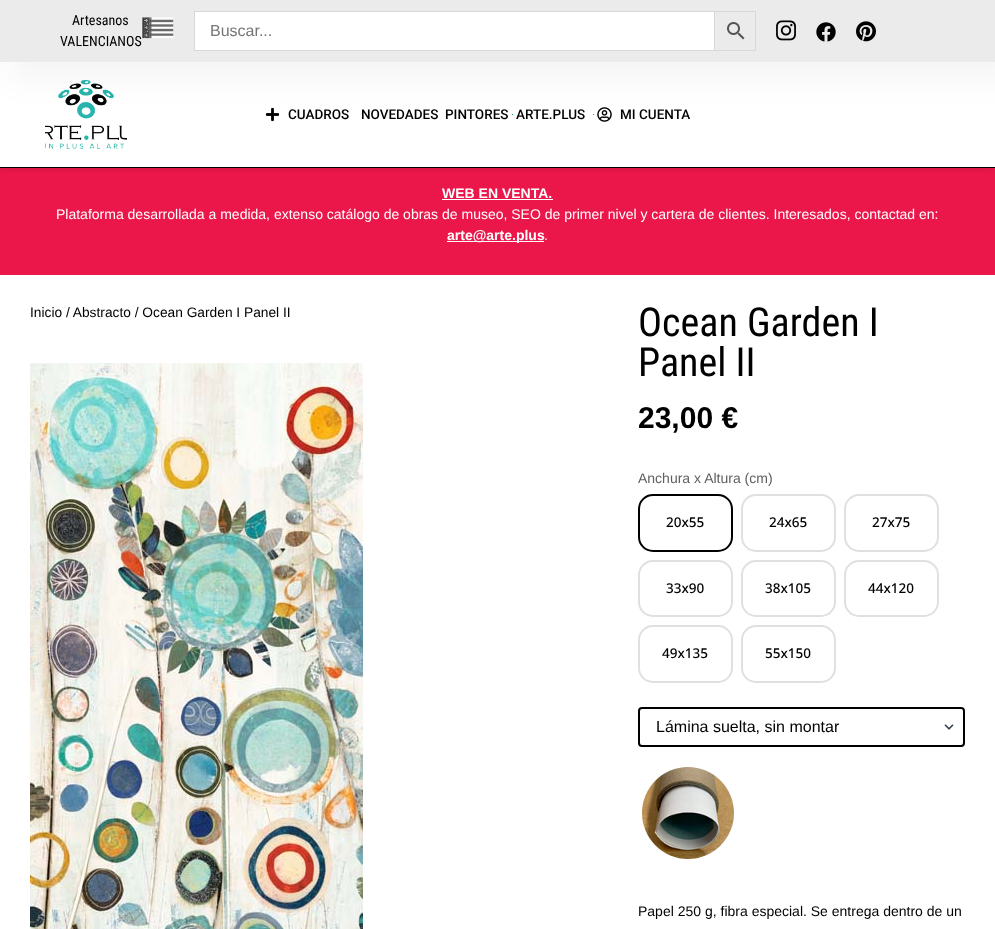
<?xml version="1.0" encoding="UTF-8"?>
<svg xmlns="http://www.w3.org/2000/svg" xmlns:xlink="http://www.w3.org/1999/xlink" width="995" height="929">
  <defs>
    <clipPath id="clip1"><rect x="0" y="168" width="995" height="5" /></clipPath>
  </defs>
  <rect width="100%" height="100%" fill="#ffffff" />
  <rect y="168" width="995" height="107" fill="#eb174b" />
  <g clip-path="url(#clip1)">
    <rect y="62" width="995" height="106" fill="#000000" fill-opacity="0.12" filter="blur(5px)" />
  </g>
  <image x="45" y="80" width="82" height="69" xlink:href="image6.png" />
  <image x="265" y="107" width="15" height="15" xlink:href="image7.png" />
  <rect x="512" y="114" width="1" height="1" fill="#0aa291" />
  <rect x="593" y="114" width="1" height="1" fill="#0aa291" />
  <image x="597" y="107" width="15" height="15" xlink:href="image8.png" />
  <rect x="10" y="10" width="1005" height="72" fill="#000000" fill-opacity="0.04" filter="blur(15px)" />
  <rect width="995" height="62" fill="#ebebeb" />
  <image x="142" y="17" width="32" height="22" xlink:href="image1.png" />
  <rect x="195" y="12" width="519" height="38" fill="#ffffff" />
  <rect x="714.5" y="11.5" width="41" height="39" fill="none" stroke="#d8d8d8" />
  <rect x="194.5" y="11.5" width="520" height="39" fill="none" stroke="#d8d8d8" />
  <image x="727" y="22" width="18" height="18" xlink:href="image2.png" />
  <image x="776" y="20" width="20" height="21" xlink:href="image3.png" />
  <image x="816" y="22" width="20" height="20" xlink:href="image4.png" />
  <image x="856" y="21" width="20" height="21" xlink:href="image5.png" />
  <rect y="167" width="995" height="1" fill="#000000" />
  <rect x="442" y="199" width="111" height="1" fill="#ffffff" />
  <rect x="447" y="241" width="97" height="1" fill="#ffffff" />
  <image x="30" y="363" width="333" height="566" xlink:href="image9.png" />
  <rect x="639" y="495" width="93" height="56" rx="14" fill="none" stroke="#000000" stroke-width="2" />
  <rect x="742" y="495" width="93" height="56" rx="14" fill="none" stroke="#e0e0e0" stroke-width="2" />
  <rect x="845" y="495" width="93" height="56" rx="14" fill="none" stroke="#e0e0e0" stroke-width="2" />
  <rect x="639" y="561" width="93" height="55" rx="14" fill="none" stroke="#e0e0e0" stroke-width="2" />
  <rect x="742" y="561" width="93" height="55" rx="14" fill="none" stroke="#e0e0e0" stroke-width="2" />
  <rect x="845" y="561" width="93" height="55" rx="14" fill="none" stroke="#e0e0e0" stroke-width="2" />
  <rect x="639" y="626" width="93" height="56" rx="14" fill="none" stroke="#e0e0e0" stroke-width="2" />
  <rect x="742" y="626" width="93" height="56" rx="14" fill="none" stroke="#e0e0e0" stroke-width="2" />
  <rect x="639" y="708" width="325" height="38" rx="3" fill="none" stroke="#000000" stroke-width="2" />
  <image x="944" y="724" width="10" height="6" xlink:href="image10.png" />
  <image x="642" y="767" width="92" height="92" xlink:href="image11.png" />
  <text x="72" y="25" style="font-family: Roboto Condensed; font-size: 14px; fill: #000000">Artesanos</text>
  <text x="60" y="46" style="font-family: Roboto Condensed; font-size: 14px; fill: #000000">VALENCIANOS</text>
  <text x="210" y="36" style="font-family: Liberation Sans; font-size: 16px; fill: #757575">Buscar...</text>
  <text x="288" y="119" style="font-family: Roboto; font-size: 13.5px; font-weight: 500; fill: #000000">CUADROS</text>
  <text x="361" y="119" style="font-family: Roboto; font-size: 13.5px; font-weight: 500; fill: #000000">NOVEDADES</text>
  <text x="445" y="119" style="font-family: Roboto; font-size: 13.5px; font-weight: 500; fill: #000000">PINTORES</text>
  <text x="516" y="119" style="font-family: Roboto; font-size: 13.5px; font-weight: 500; fill: #000000">ARTE.PLUS</text>
  <text x="620" y="119" style="font-family: Roboto; font-size: 13.5px; font-weight: 500; fill: #000000">MI CUENTA</text>
  <text x="442" y="198" style="font-family: Liberation Sans; font-size: 14px; font-weight: bold; fill: #ffffff">WEB EN VENTA.</text>
  <text x="56" y="219" style="font-family: Liberation Sans; font-size: 14px; fill: #ffffff">Plataforma desarrollada a medida, extenso catálogo de obras de museo, SEO de primer nivel y cartera de clientes. Interesados, contactad en:</text>
  <text x="447" y="240" style="font-family: Liberation Sans; font-size: 14px; font-weight: bold; fill: #ffffff">arte@arte.plus</text>
  <text x="544" y="240" style="font-family: Liberation Sans; font-size: 14px; fill: #ffffff">.</text>
  <text x="30" y="317" style="font-family: Liberation Sans; font-size: 13.75px; fill: #000000">Inicio / Abstracto / Ocean Garden I Panel II</text>
  <text x="638" y="336" style="font-family: Roboto Condensed; font-size: 40px; fill: #000000">Ocean Garden I</text>
  <text x="638" y="376" style="font-family: Roboto Condensed; font-size: 40px; fill: #000000">Panel II</text>
  <text x="638" y="428" style="font-family: Liberation Sans; font-size: 30px; font-weight: bold; fill: #000000">23,00 €</text>
  <text x="638" y="483" style="font-family: Liberation Sans; font-size: 14px; fill: #5f5f5f">Anchura x Altura (cm)</text>
  <text x="666" y="527" style="font-family: Noto Sans; font-size: 13.5px; font-weight: 500; fill: #000000">20x55</text>
  <text x="769" y="527" style="font-family: Noto Sans; font-size: 13.5px; font-weight: 500; fill: #000000">24x65</text>
  <text x="872" y="527" style="font-family: Noto Sans; font-size: 13.5px; font-weight: 500; fill: #000000">27x75</text>
  <text x="666" y="593" style="font-family: Noto Sans; font-size: 13.5px; font-weight: 500; fill: #000000">33x90</text>
  <text x="765" y="593" style="font-family: Noto Sans; font-size: 13.5px; font-weight: 500; fill: #000000">38x105</text>
  <text x="868" y="593" style="font-family: Noto Sans; font-size: 13.5px; font-weight: 500; fill: #000000">44x120</text>
  <text x="662" y="658" style="font-family: Noto Sans; font-size: 13.5px; font-weight: 500; fill: #000000">49x135</text>
  <text x="765" y="658" style="font-family: Noto Sans; font-size: 13.5px; font-weight: 500; fill: #000000">55x150</text>
  <text x="656" y="732" style="font-family: Liberation Sans; font-size: 16px; fill: #000000">Lámina suelta, sin montar</text>
  <text x="638" y="916" style="font-family: Liberation Sans; font-size: 14px; fill: #000000">Papel 250 g, fibra especial. Se entrega dentro de un</text>
</svg>
